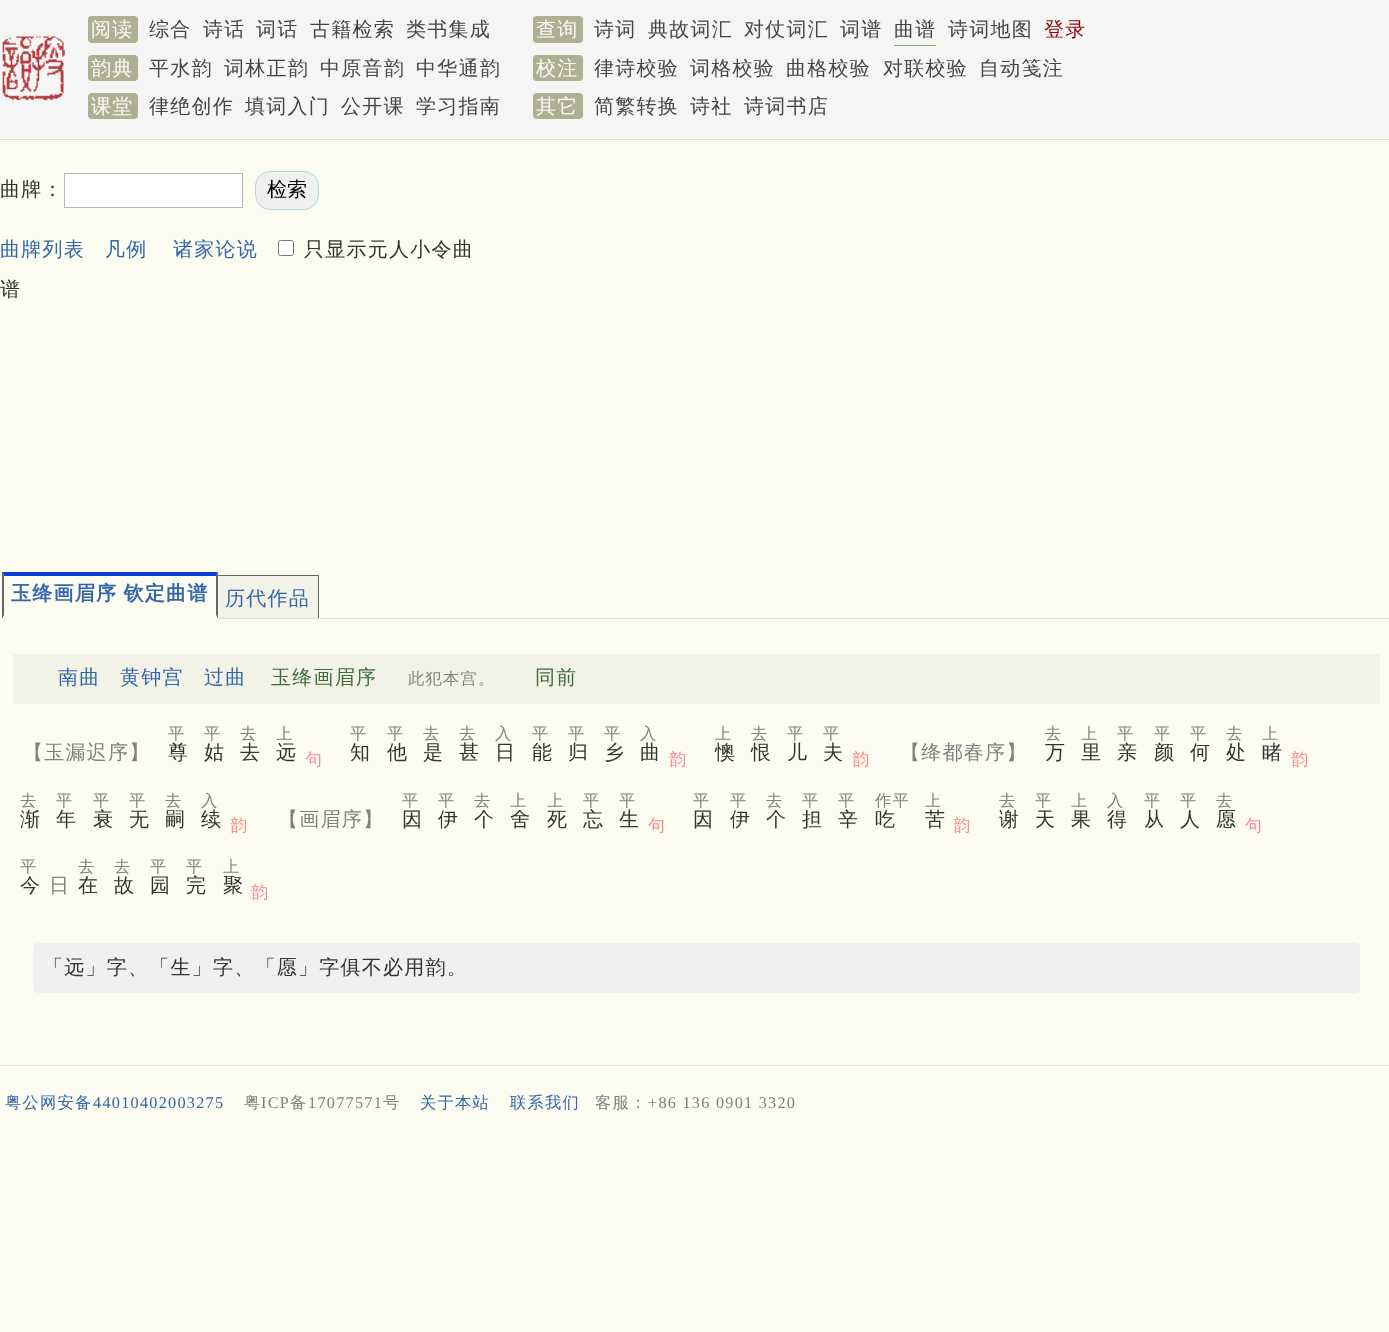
<?xml version="1.0" encoding="UTF-8"?>
<svg xmlns="http://www.w3.org/2000/svg" xmlns:xlink="http://www.w3.org/1999/xlink" width="1389" height="1332">
  <rect width="100%" height="100%" fill="#fcfcf1" />
  <rect width="1389" height="139" fill="#f5f5f5" />
  <rect y="139" width="1389" height="1" fill="#dddddd" />
  <rect x="88" y="16" width="50" height="27" rx="4" fill="#afaf92" />
  <rect x="533" y="16" width="50" height="27" rx="4" fill="#afaf92" />
  <rect x="894" y="45" width="42" height="1" fill="#72b352" />
  <image x="2" y="36" width="63" height="65" xlink:href="image1.png" />
  <rect x="88" y="55" width="50" height="26" rx="4" fill="#afaf92" />
  <rect x="533" y="55" width="50" height="26" rx="4" fill="#afaf92" />
  <rect x="88" y="93" width="50" height="26" rx="4" fill="#afaf92" />
  <rect x="533" y="93" width="50" height="26" rx="4" fill="#afaf92" />
  <rect x="64.5" y="173.5" width="178" height="34" fill="#ffffff" stroke="#b4b7be" />
  <rect x="255.5" y="171.5" width="63" height="38" rx="14.5" fill="#f0f0f0" stroke="#add8e6" />
  <rect x="278.5" y="240.5" width="15" height="15" rx="2" fill="#ffffff" stroke="#767676" />
  <rect x="216" y="575" width="103" height="1" fill="#666666" />
  <path d="M 2 572 h 216 l -2 4 h -212 z" fill="#0941d9" />
  <rect x="216" y="576" width="102" height="42" fill="#f2f2e7" />
  <rect x="217" y="618" width="1172" height="1" fill="#dddddd" />
  <path d="M 218 572 v 47 l -2 -4 v -39 z" fill="#666666" />
  <path d="M 218 619 h -216 l 2 -4 h 212 z" fill="#fcfcf1" />
  <path d="M 2 619 v -47 l 2 4 v 39 z" fill="#666666" />
  <rect x="318" y="575" width="1" height="43" fill="#666666" />
  <rect x="13" y="654" width="1367" height="50" fill="#f2f2e7" />
  <rect x="33" y="943" width="1327" height="50" rx="5" fill="#f0f0f0" />
  <rect y="1065" width="1389" height="1" fill="#e5e5e5" />
  <text x="91" y="36" style="font-family: WenQuanYi Zen Hei; font-size: 20px; font-weight: 500; letter-spacing: 1.25px; fill: #fbfbfb">阅读</text>
  <text x="149" y="36" style="font-family: WenQuanYi Zen Hei; font-size: 20px; font-weight: 500; letter-spacing: 1.25px; fill: #444444">综合</text>
  <text x="203" y="36" style="font-family: WenQuanYi Zen Hei; font-size: 20px; font-weight: 500; letter-spacing: 1.25px; fill: #444444">诗话</text>
  <text x="256" y="36" style="font-family: WenQuanYi Zen Hei; font-size: 20px; font-weight: 500; letter-spacing: 1.25px; fill: #444444">词话</text>
  <text x="310" y="36" style="font-family: WenQuanYi Zen Hei; font-size: 20px; font-weight: 500; letter-spacing: 1.25px; fill: #444444">古籍检索</text>
  <text x="406" y="36" style="font-family: WenQuanYi Zen Hei; font-size: 20px; font-weight: 500; letter-spacing: 1.25px; fill: #444444">类书集成</text>
  <text x="536" y="36" style="font-family: WenQuanYi Zen Hei; font-size: 20px; font-weight: 500; letter-spacing: 1.25px; fill: #fbfbfb">查询</text>
  <text x="594" y="36" style="font-family: WenQuanYi Zen Hei; font-size: 20px; font-weight: 500; letter-spacing: 1.25px; fill: #444444">诗词</text>
  <text x="648" y="36" style="font-family: WenQuanYi Zen Hei; font-size: 20px; font-weight: 500; letter-spacing: 1.25px; fill: #444444">典故词汇</text>
  <text x="744" y="36" style="font-family: WenQuanYi Zen Hei; font-size: 20px; font-weight: 500; letter-spacing: 1.25px; fill: #444444">对仗词汇</text>
  <text x="840" y="36" style="font-family: WenQuanYi Zen Hei; font-size: 20px; font-weight: 500; letter-spacing: 1.25px; fill: #444444">词谱</text>
  <text x="894" y="36" style="font-family: WenQuanYi Zen Hei; font-size: 20px; font-weight: 500; letter-spacing: 1.25px; fill: #444444">曲谱</text>
  <text x="948" y="36" style="font-family: WenQuanYi Zen Hei; font-size: 20px; font-weight: 500; letter-spacing: 1.25px; fill: #444444">诗词地图</text>
  <text x="1044" y="36" style="font-family: WenQuanYi Zen Hei; font-size: 20px; font-weight: 500; letter-spacing: 1.25px; fill: #8b0000">登录</text>
  <text x="91" y="75" style="font-family: WenQuanYi Zen Hei; font-size: 20px; font-weight: 500; letter-spacing: 1.25px; fill: #fbfbfb">韵典</text>
  <text x="149" y="75" style="font-family: WenQuanYi Zen Hei; font-size: 20px; font-weight: 500; letter-spacing: 1.25px; fill: #444444">平水韵</text>
  <text x="224" y="75" style="font-family: WenQuanYi Zen Hei; font-size: 20px; font-weight: 500; letter-spacing: 1.25px; fill: #444444">词林正韵</text>
  <text x="320" y="75" style="font-family: WenQuanYi Zen Hei; font-size: 20px; font-weight: 500; letter-spacing: 1.25px; fill: #444444">中原音韵</text>
  <text x="416" y="75" style="font-family: WenQuanYi Zen Hei; font-size: 20px; font-weight: 500; letter-spacing: 1.25px; fill: #444444">中华通韵</text>
  <text x="536" y="75" style="font-family: WenQuanYi Zen Hei; font-size: 20px; font-weight: 500; letter-spacing: 1.25px; fill: #fbfbfb">校注</text>
  <text x="594" y="75" style="font-family: WenQuanYi Zen Hei; font-size: 20px; font-weight: 500; letter-spacing: 1.25px; fill: #444444">律诗校验</text>
  <text x="690" y="75" style="font-family: WenQuanYi Zen Hei; font-size: 20px; font-weight: 500; letter-spacing: 1.25px; fill: #444444">词格校验</text>
  <text x="786" y="75" style="font-family: WenQuanYi Zen Hei; font-size: 20px; font-weight: 500; letter-spacing: 1.25px; fill: #444444">曲格校验</text>
  <text x="883" y="75" style="font-family: WenQuanYi Zen Hei; font-size: 20px; font-weight: 500; letter-spacing: 1.25px; fill: #444444">对联校验</text>
  <text x="979" y="75" style="font-family: WenQuanYi Zen Hei; font-size: 20px; font-weight: 500; letter-spacing: 1.25px; fill: #444444">自动笺注</text>
  <text x="91" y="113" style="font-family: WenQuanYi Zen Hei; font-size: 20px; font-weight: 500; letter-spacing: 1.25px; fill: #fbfbfb">课堂</text>
  <text x="149" y="113" style="font-family: WenQuanYi Zen Hei; font-size: 20px; font-weight: 500; letter-spacing: 1.25px; fill: #444444">律绝创作</text>
  <text x="245" y="113" style="font-family: WenQuanYi Zen Hei; font-size: 20px; font-weight: 500; letter-spacing: 1.25px; fill: #444444">填词入门</text>
  <text x="341" y="113" style="font-family: WenQuanYi Zen Hei; font-size: 20px; font-weight: 500; letter-spacing: 1.25px; fill: #444444">公开课</text>
  <text x="416" y="113" style="font-family: WenQuanYi Zen Hei; font-size: 20px; font-weight: 500; letter-spacing: 1.25px; fill: #444444">学习指南</text>
  <text x="536" y="113" style="font-family: WenQuanYi Zen Hei; font-size: 20px; font-weight: 500; letter-spacing: 1.25px; fill: #fbfbfb">其它</text>
  <text x="594" y="113" style="font-family: WenQuanYi Zen Hei; font-size: 20px; font-weight: 500; letter-spacing: 1.25px; fill: #444444">简繁转换</text>
  <text x="690" y="113" style="font-family: WenQuanYi Zen Hei; font-size: 20px; font-weight: 500; letter-spacing: 1.25px; fill: #444444">诗社</text>
  <text x="744" y="113" style="font-family: WenQuanYi Zen Hei; font-size: 20px; font-weight: 500; letter-spacing: 1.25px; fill: #444444">诗词书店</text>
  <text x="0" y="196" style="font-family: WenQuanYi Zen Hei; font-size: 20px; font-weight: 500; letter-spacing: 1.25px; fill: #333333">曲牌：</text>
  <text x="267" y="196" style="font-family: WenQuanYi Zen Hei; font-size: 20px; font-weight: 500; fill: #000000">检索</text>
  <text x="0" y="256" style="font-family: WenQuanYi Zen Hei; font-size: 20px; font-weight: 500; letter-spacing: 1.25px; fill: #3366aa">曲牌列表</text>
  <text x="105" y="256" style="font-family: WenQuanYi Zen Hei; font-size: 20px; font-weight: 500; letter-spacing: 1.25px; fill: #3366aa">凡例</text>
  <text x="173" y="256" style="font-family: WenQuanYi Zen Hei; font-size: 20px; font-weight: 500; letter-spacing: 1.25px; fill: #3366aa">诸家论说</text>
  <text x="304" y="256" style="font-family: WenQuanYi Zen Hei; font-size: 20px; font-weight: 500; letter-spacing: 1.25px; fill: #333333">只显示元人小令曲</text>
  <text x="0" y="296" style="font-family: WenQuanYi Zen Hei; font-size: 20px; font-weight: 500; letter-spacing: 1.25px; fill: #333333">谱</text>
  <text x="11" y="600" word-spacing="-1" style="font-family: WenQuanYi Zen Hei; font-size: 20px; font-weight: bold; letter-spacing: 1.25px; fill: #3366aa">玉绛画眉序 钦定曲谱</text>
  <text x="225" y="605" style="font-family: WenQuanYi Zen Hei; font-size: 20px; font-weight: 500; letter-spacing: 1.25px; fill: #3366aa">历代作品</text>
  <text x="58" y="684" style="font-family: WenQuanYi Zen Hei; font-size: 20px; font-weight: 500; letter-spacing: 1.25px; fill: #3366aa">南曲</text>
  <text x="120" y="684" style="font-family: WenQuanYi Zen Hei; font-size: 20px; font-weight: 500; letter-spacing: 1.25px; fill: #3366aa">黄钟宫</text>
  <text x="204" y="684" style="font-family: WenQuanYi Zen Hei; font-size: 20px; font-weight: 500; letter-spacing: 1.25px; fill: #3366aa">过曲</text>
  <text x="271" y="684" style="font-family: WenQuanYi Zen Hei; font-size: 20px; font-weight: 500; letter-spacing: 1.25px; fill: #3b6e3a">玉绛画眉序</text>
  <text x="408" y="684" style="font-family: WenQuanYi Zen Hei; font-size: 16.25px; font-weight: 500; letter-spacing: 1.25px; fill: #808080">此犯本宫。</text>
  <text x="535" y="684" style="font-family: WenQuanYi Zen Hei; font-size: 20px; font-weight: 500; letter-spacing: 1.25px; fill: #3b6e3a">同前</text>
  <text x="23" y="759" style="font-family: WenQuanYi Zen Hei; font-size: 20px; font-weight: 500; letter-spacing: 1.25px; fill: #808080">【玉漏迟序】</text>
  <text x="168" y="739" style="font-family: WenQuanYi Zen Hei; font-size: 16.25px; font-weight: 500; letter-spacing: 1.25px; fill: #808080">平</text>
  <text x="168" y="759" style="font-family: WenQuanYi Zen Hei; font-size: 20px; font-weight: 500; letter-spacing: 1.25px; fill: #333333">尊</text>
  <text x="204" y="739" style="font-family: WenQuanYi Zen Hei; font-size: 16.25px; font-weight: 500; letter-spacing: 1.25px; fill: #808080">平</text>
  <text x="204" y="759" style="font-family: WenQuanYi Zen Hei; font-size: 20px; font-weight: 500; letter-spacing: 1.25px; fill: #333333">姑</text>
  <text x="240" y="739" style="font-family: WenQuanYi Zen Hei; font-size: 16.25px; font-weight: 500; letter-spacing: 1.25px; fill: #808080">去</text>
  <text x="240" y="759" style="font-family: WenQuanYi Zen Hei; font-size: 20px; font-weight: 500; letter-spacing: 1.25px; fill: #333333">去</text>
  <text x="276" y="739" style="font-family: WenQuanYi Zen Hei; font-size: 16.25px; font-weight: 500; letter-spacing: 1.25px; fill: #808080">上</text>
  <text x="276" y="759" style="font-family: WenQuanYi Zen Hei; font-size: 20px; font-weight: 500; letter-spacing: 1.25px; fill: #333333">远</text>
  <text x="305" y="765" style="font-family: WenQuanYi Zen Hei; font-size: 17px; font-weight: 500; letter-spacing: 1.25px; fill: #ff8688">句</text>
  <text x="350" y="739" style="font-family: WenQuanYi Zen Hei; font-size: 16.25px; font-weight: 500; letter-spacing: 1.25px; fill: #808080">平</text>
  <text x="350" y="759" style="font-family: WenQuanYi Zen Hei; font-size: 20px; font-weight: 500; letter-spacing: 1.25px; fill: #333333">知</text>
  <text x="387" y="739" style="font-family: WenQuanYi Zen Hei; font-size: 16.25px; font-weight: 500; letter-spacing: 1.25px; fill: #808080">平</text>
  <text x="387" y="759" style="font-family: WenQuanYi Zen Hei; font-size: 20px; font-weight: 500; letter-spacing: 1.25px; fill: #333333">他</text>
  <text x="423" y="739" style="font-family: WenQuanYi Zen Hei; font-size: 16.25px; font-weight: 500; letter-spacing: 1.25px; fill: #808080">去</text>
  <text x="423" y="759" style="font-family: WenQuanYi Zen Hei; font-size: 20px; font-weight: 500; letter-spacing: 1.25px; fill: #333333">是</text>
  <text x="459" y="739" style="font-family: WenQuanYi Zen Hei; font-size: 16.25px; font-weight: 500; letter-spacing: 1.25px; fill: #808080">去</text>
  <text x="459" y="759" style="font-family: WenQuanYi Zen Hei; font-size: 20px; font-weight: 500; letter-spacing: 1.25px; fill: #333333">甚</text>
  <text x="495" y="739" style="font-family: WenQuanYi Zen Hei; font-size: 16.25px; font-weight: 500; letter-spacing: 1.25px; fill: #808080">入</text>
  <text x="495" y="759" style="font-family: WenQuanYi Zen Hei; font-size: 20px; font-weight: 500; letter-spacing: 1.25px; fill: #333333">日</text>
  <text x="532" y="739" style="font-family: WenQuanYi Zen Hei; font-size: 16.25px; font-weight: 500; letter-spacing: 1.25px; fill: #808080">平</text>
  <text x="532" y="759" style="font-family: WenQuanYi Zen Hei; font-size: 20px; font-weight: 500; letter-spacing: 1.25px; fill: #333333">能</text>
  <text x="568" y="739" style="font-family: WenQuanYi Zen Hei; font-size: 16.25px; font-weight: 500; letter-spacing: 1.25px; fill: #808080">平</text>
  <text x="568" y="759" style="font-family: WenQuanYi Zen Hei; font-size: 20px; font-weight: 500; letter-spacing: 1.25px; fill: #333333">归</text>
  <text x="604" y="739" style="font-family: WenQuanYi Zen Hei; font-size: 16.25px; font-weight: 500; letter-spacing: 1.25px; fill: #808080">平</text>
  <text x="604" y="759" style="font-family: WenQuanYi Zen Hei; font-size: 20px; font-weight: 500; letter-spacing: 1.25px; fill: #333333">乡</text>
  <text x="640" y="739" style="font-family: WenQuanYi Zen Hei; font-size: 16.25px; font-weight: 500; letter-spacing: 1.25px; fill: #808080">入</text>
  <text x="640" y="759" style="font-family: WenQuanYi Zen Hei; font-size: 20px; font-weight: 500; letter-spacing: 1.25px; fill: #333333">曲</text>
  <text x="669" y="765" style="font-family: WenQuanYi Zen Hei; font-size: 17px; font-weight: 500; letter-spacing: 1.25px; fill: #ff8688">韵</text>
  <text x="715" y="739" style="font-family: WenQuanYi Zen Hei; font-size: 16.25px; font-weight: 500; letter-spacing: 1.25px; fill: #808080">上</text>
  <text x="715" y="759" style="font-family: WenQuanYi Zen Hei; font-size: 20px; font-weight: 500; letter-spacing: 1.25px; fill: #333333">懊</text>
  <text x="751" y="739" style="font-family: WenQuanYi Zen Hei; font-size: 16.25px; font-weight: 500; letter-spacing: 1.25px; fill: #808080">去</text>
  <text x="751" y="759" style="font-family: WenQuanYi Zen Hei; font-size: 20px; font-weight: 500; letter-spacing: 1.25px; fill: #333333">恨</text>
  <text x="787" y="739" style="font-family: WenQuanYi Zen Hei; font-size: 16.25px; font-weight: 500; letter-spacing: 1.25px; fill: #808080">平</text>
  <text x="787" y="759" style="font-family: WenQuanYi Zen Hei; font-size: 20px; font-weight: 500; letter-spacing: 1.25px; fill: #333333">儿</text>
  <text x="823" y="739" style="font-family: WenQuanYi Zen Hei; font-size: 16.25px; font-weight: 500; letter-spacing: 1.25px; fill: #808080">平</text>
  <text x="823" y="759" style="font-family: WenQuanYi Zen Hei; font-size: 20px; font-weight: 500; letter-spacing: 1.25px; fill: #333333">夫</text>
  <text x="852" y="765" style="font-family: WenQuanYi Zen Hei; font-size: 17px; font-weight: 500; letter-spacing: 1.25px; fill: #ff8688">韵</text>
  <text x="900" y="759" style="font-family: WenQuanYi Zen Hei; font-size: 20px; font-weight: 500; letter-spacing: 1.25px; fill: #808080">【绛都春序】</text>
  <text x="1045" y="739" style="font-family: WenQuanYi Zen Hei; font-size: 16.25px; font-weight: 500; letter-spacing: 1.25px; fill: #808080">去</text>
  <text x="1045" y="759" style="font-family: WenQuanYi Zen Hei; font-size: 20px; font-weight: 500; letter-spacing: 1.25px; fill: #333333">万</text>
  <text x="1081" y="739" style="font-family: WenQuanYi Zen Hei; font-size: 16.25px; font-weight: 500; letter-spacing: 1.25px; fill: #808080">上</text>
  <text x="1081" y="759" style="font-family: WenQuanYi Zen Hei; font-size: 20px; font-weight: 500; letter-spacing: 1.25px; fill: #333333">里</text>
  <text x="1117" y="739" style="font-family: WenQuanYi Zen Hei; font-size: 16.25px; font-weight: 500; letter-spacing: 1.25px; fill: #808080">平</text>
  <text x="1117" y="759" style="font-family: WenQuanYi Zen Hei; font-size: 20px; font-weight: 500; letter-spacing: 1.25px; fill: #333333">亲</text>
  <text x="1154" y="739" style="font-family: WenQuanYi Zen Hei; font-size: 16.25px; font-weight: 500; letter-spacing: 1.25px; fill: #808080">平</text>
  <text x="1154" y="759" style="font-family: WenQuanYi Zen Hei; font-size: 20px; font-weight: 500; letter-spacing: 1.25px; fill: #333333">颜</text>
  <text x="1190" y="739" style="font-family: WenQuanYi Zen Hei; font-size: 16.25px; font-weight: 500; letter-spacing: 1.25px; fill: #808080">平</text>
  <text x="1190" y="759" style="font-family: WenQuanYi Zen Hei; font-size: 20px; font-weight: 500; letter-spacing: 1.25px; fill: #333333">何</text>
  <text x="1226" y="739" style="font-family: WenQuanYi Zen Hei; font-size: 16.25px; font-weight: 500; letter-spacing: 1.25px; fill: #808080">去</text>
  <text x="1226" y="759" style="font-family: WenQuanYi Zen Hei; font-size: 20px; font-weight: 500; letter-spacing: 1.25px; fill: #333333">处</text>
  <text x="1262" y="739" style="font-family: WenQuanYi Zen Hei; font-size: 16.25px; font-weight: 500; letter-spacing: 1.25px; fill: #808080">上</text>
  <text x="1262" y="759" style="font-family: WenQuanYi Zen Hei; font-size: 20px; font-weight: 500; letter-spacing: 1.25px; fill: #333333">睹</text>
  <text x="1291" y="765" style="font-family: WenQuanYi Zen Hei; font-size: 17px; font-weight: 500; letter-spacing: 1.25px; fill: #ff8688">韵</text>
  <text x="20" y="806" style="font-family: WenQuanYi Zen Hei; font-size: 16.25px; font-weight: 500; letter-spacing: 1.25px; fill: #808080">去</text>
  <text x="20" y="826" style="font-family: WenQuanYi Zen Hei; font-size: 20px; font-weight: 500; letter-spacing: 1.25px; fill: #333333">渐</text>
  <text x="56" y="806" style="font-family: WenQuanYi Zen Hei; font-size: 16.25px; font-weight: 500; letter-spacing: 1.25px; fill: #808080">平</text>
  <text x="56" y="826" style="font-family: WenQuanYi Zen Hei; font-size: 20px; font-weight: 500; letter-spacing: 1.25px; fill: #333333">年</text>
  <text x="93" y="806" style="font-family: WenQuanYi Zen Hei; font-size: 16.25px; font-weight: 500; letter-spacing: 1.25px; fill: #808080">平</text>
  <text x="93" y="826" style="font-family: WenQuanYi Zen Hei; font-size: 20px; font-weight: 500; letter-spacing: 1.25px; fill: #333333">衰</text>
  <text x="129" y="806" style="font-family: WenQuanYi Zen Hei; font-size: 16.25px; font-weight: 500; letter-spacing: 1.25px; fill: #808080">平</text>
  <text x="129" y="826" style="font-family: WenQuanYi Zen Hei; font-size: 20px; font-weight: 500; letter-spacing: 1.25px; fill: #333333">无</text>
  <text x="165" y="806" style="font-family: WenQuanYi Zen Hei; font-size: 16.25px; font-weight: 500; letter-spacing: 1.25px; fill: #808080">去</text>
  <text x="165" y="826" style="font-family: WenQuanYi Zen Hei; font-size: 20px; font-weight: 500; letter-spacing: 1.25px; fill: #333333">嗣</text>
  <text x="201" y="806" style="font-family: WenQuanYi Zen Hei; font-size: 16.25px; font-weight: 500; letter-spacing: 1.25px; fill: #808080">入</text>
  <text x="201" y="826" style="font-family: WenQuanYi Zen Hei; font-size: 20px; font-weight: 500; letter-spacing: 1.25px; fill: #333333">续</text>
  <text x="230" y="831" style="font-family: WenQuanYi Zen Hei; font-size: 17px; font-weight: 500; letter-spacing: 1.25px; fill: #ff8688">韵</text>
  <text x="278" y="826" style="font-family: WenQuanYi Zen Hei; font-size: 20px; font-weight: 500; letter-spacing: 1.25px; fill: #808080">【画眉序】</text>
  <text x="402" y="806" style="font-family: WenQuanYi Zen Hei; font-size: 16.25px; font-weight: 500; letter-spacing: 1.25px; fill: #808080">平</text>
  <text x="402" y="826" style="font-family: WenQuanYi Zen Hei; font-size: 20px; font-weight: 500; letter-spacing: 1.25px; fill: #333333">因</text>
  <text x="438" y="806" style="font-family: WenQuanYi Zen Hei; font-size: 16.25px; font-weight: 500; letter-spacing: 1.25px; fill: #808080">平</text>
  <text x="438" y="826" style="font-family: WenQuanYi Zen Hei; font-size: 20px; font-weight: 500; letter-spacing: 1.25px; fill: #333333">伊</text>
  <text x="474" y="806" style="font-family: WenQuanYi Zen Hei; font-size: 16.25px; font-weight: 500; letter-spacing: 1.25px; fill: #808080">去</text>
  <text x="474" y="826" style="font-family: WenQuanYi Zen Hei; font-size: 20px; font-weight: 500; letter-spacing: 1.25px; fill: #333333">个</text>
  <text x="510" y="806" style="font-family: WenQuanYi Zen Hei; font-size: 16.25px; font-weight: 500; letter-spacing: 1.25px; fill: #808080">上</text>
  <text x="510" y="826" style="font-family: WenQuanYi Zen Hei; font-size: 20px; font-weight: 500; letter-spacing: 1.25px; fill: #333333">舍</text>
  <text x="547" y="806" style="font-family: WenQuanYi Zen Hei; font-size: 16.25px; font-weight: 500; letter-spacing: 1.25px; fill: #808080">上</text>
  <text x="547" y="826" style="font-family: WenQuanYi Zen Hei; font-size: 20px; font-weight: 500; letter-spacing: 1.25px; fill: #333333">死</text>
  <text x="583" y="806" style="font-family: WenQuanYi Zen Hei; font-size: 16.25px; font-weight: 500; letter-spacing: 1.25px; fill: #808080">平</text>
  <text x="583" y="826" style="font-family: WenQuanYi Zen Hei; font-size: 20px; font-weight: 500; letter-spacing: 1.25px; fill: #333333">忘</text>
  <text x="619" y="806" style="font-family: WenQuanYi Zen Hei; font-size: 16.25px; font-weight: 500; letter-spacing: 1.25px; fill: #808080">平</text>
  <text x="619" y="826" style="font-family: WenQuanYi Zen Hei; font-size: 20px; font-weight: 500; letter-spacing: 1.25px; fill: #333333">生</text>
  <text x="648" y="831" style="font-family: WenQuanYi Zen Hei; font-size: 17px; font-weight: 500; letter-spacing: 1.25px; fill: #ff8688">句</text>
  <text x="693" y="806" style="font-family: WenQuanYi Zen Hei; font-size: 16.25px; font-weight: 500; letter-spacing: 1.25px; fill: #808080">平</text>
  <text x="693" y="826" style="font-family: WenQuanYi Zen Hei; font-size: 20px; font-weight: 500; letter-spacing: 1.25px; fill: #333333">因</text>
  <text x="730" y="806" style="font-family: WenQuanYi Zen Hei; font-size: 16.25px; font-weight: 500; letter-spacing: 1.25px; fill: #808080">平</text>
  <text x="730" y="826" style="font-family: WenQuanYi Zen Hei; font-size: 20px; font-weight: 500; letter-spacing: 1.25px; fill: #333333">伊</text>
  <text x="766" y="806" style="font-family: WenQuanYi Zen Hei; font-size: 16.25px; font-weight: 500; letter-spacing: 1.25px; fill: #808080">去</text>
  <text x="766" y="826" style="font-family: WenQuanYi Zen Hei; font-size: 20px; font-weight: 500; letter-spacing: 1.25px; fill: #333333">个</text>
  <text x="802" y="806" style="font-family: WenQuanYi Zen Hei; font-size: 16.25px; font-weight: 500; letter-spacing: 1.25px; fill: #808080">平</text>
  <text x="802" y="826" style="font-family: WenQuanYi Zen Hei; font-size: 20px; font-weight: 500; letter-spacing: 1.25px; fill: #333333">担</text>
  <text x="838" y="806" style="font-family: WenQuanYi Zen Hei; font-size: 16.25px; font-weight: 500; letter-spacing: 1.25px; fill: #808080">平</text>
  <text x="838" y="826" style="font-family: WenQuanYi Zen Hei; font-size: 20px; font-weight: 500; letter-spacing: 1.25px; fill: #333333">辛</text>
  <text x="875" y="806" style="font-family: WenQuanYi Zen Hei; font-size: 16.25px; font-weight: 500; letter-spacing: 1.25px; fill: #808080">作平</text>
  <text x="875" y="826" style="font-family: WenQuanYi Zen Hei; font-size: 20px; font-weight: 500; letter-spacing: 1.25px; fill: #333333">吃</text>
  <text x="925" y="806" style="font-family: WenQuanYi Zen Hei; font-size: 16.25px; font-weight: 500; letter-spacing: 1.25px; fill: #808080">上</text>
  <text x="925" y="826" style="font-family: WenQuanYi Zen Hei; font-size: 20px; font-weight: 500; letter-spacing: 1.25px; fill: #333333">苦</text>
  <text x="953" y="831" style="font-family: WenQuanYi Zen Hei; font-size: 17px; font-weight: 500; letter-spacing: 1.25px; fill: #ff8688">韵</text>
  <text x="999" y="806" style="font-family: WenQuanYi Zen Hei; font-size: 16.25px; font-weight: 500; letter-spacing: 1.25px; fill: #808080">去</text>
  <text x="999" y="826" style="font-family: WenQuanYi Zen Hei; font-size: 20px; font-weight: 500; letter-spacing: 1.25px; fill: #333333">谢</text>
  <text x="1035" y="806" style="font-family: WenQuanYi Zen Hei; font-size: 16.25px; font-weight: 500; letter-spacing: 1.25px; fill: #808080">平</text>
  <text x="1035" y="826" style="font-family: WenQuanYi Zen Hei; font-size: 20px; font-weight: 500; letter-spacing: 1.25px; fill: #333333">天</text>
  <text x="1071" y="806" style="font-family: WenQuanYi Zen Hei; font-size: 16.25px; font-weight: 500; letter-spacing: 1.25px; fill: #808080">上</text>
  <text x="1071" y="826" style="font-family: WenQuanYi Zen Hei; font-size: 20px; font-weight: 500; letter-spacing: 1.25px; fill: #333333">果</text>
  <text x="1107" y="806" style="font-family: WenQuanYi Zen Hei; font-size: 16.25px; font-weight: 500; letter-spacing: 1.25px; fill: #808080">入</text>
  <text x="1107" y="826" style="font-family: WenQuanYi Zen Hei; font-size: 20px; font-weight: 500; letter-spacing: 1.25px; fill: #333333">得</text>
  <text x="1144" y="806" style="font-family: WenQuanYi Zen Hei; font-size: 16.25px; font-weight: 500; letter-spacing: 1.25px; fill: #808080">平</text>
  <text x="1144" y="826" style="font-family: WenQuanYi Zen Hei; font-size: 20px; font-weight: 500; letter-spacing: 1.25px; fill: #333333">从</text>
  <text x="1180" y="806" style="font-family: WenQuanYi Zen Hei; font-size: 16.25px; font-weight: 500; letter-spacing: 1.25px; fill: #808080">平</text>
  <text x="1180" y="826" style="font-family: WenQuanYi Zen Hei; font-size: 20px; font-weight: 500; letter-spacing: 1.25px; fill: #333333">人</text>
  <text x="1216" y="806" style="font-family: WenQuanYi Zen Hei; font-size: 16.25px; font-weight: 500; letter-spacing: 1.25px; fill: #808080">去</text>
  <text x="1216" y="826" style="font-family: WenQuanYi Zen Hei; font-size: 20px; font-weight: 500; letter-spacing: 1.25px; fill: #333333">愿</text>
  <text x="1245" y="831" style="font-family: WenQuanYi Zen Hei; font-size: 17px; font-weight: 500; letter-spacing: 1.25px; fill: #ff8688">句</text>
  <text x="20" y="872" style="font-family: WenQuanYi Zen Hei; font-size: 16.25px; font-weight: 500; letter-spacing: 1.25px; fill: #808080">平</text>
  <text x="20" y="892" style="font-family: WenQuanYi Zen Hei; font-size: 20px; font-weight: 500; letter-spacing: 1.25px; fill: #333333">今</text>
  <text x="49" y="892" style="font-family: WenQuanYi Zen Hei; font-size: 20px; font-weight: 500; letter-spacing: 1.25px; fill: #808080">日</text>
  <text x="78" y="872" style="font-family: WenQuanYi Zen Hei; font-size: 16.25px; font-weight: 500; letter-spacing: 1.25px; fill: #808080">去</text>
  <text x="78" y="892" style="font-family: WenQuanYi Zen Hei; font-size: 20px; font-weight: 500; letter-spacing: 1.25px; fill: #333333">在</text>
  <text x="114" y="872" style="font-family: WenQuanYi Zen Hei; font-size: 16.25px; font-weight: 500; letter-spacing: 1.25px; fill: #808080">去</text>
  <text x="114" y="892" style="font-family: WenQuanYi Zen Hei; font-size: 20px; font-weight: 500; letter-spacing: 1.25px; fill: #333333">故</text>
  <text x="150" y="872" style="font-family: WenQuanYi Zen Hei; font-size: 16.25px; font-weight: 500; letter-spacing: 1.25px; fill: #808080">平</text>
  <text x="150" y="892" style="font-family: WenQuanYi Zen Hei; font-size: 20px; font-weight: 500; letter-spacing: 1.25px; fill: #333333">园</text>
  <text x="186" y="872" style="font-family: WenQuanYi Zen Hei; font-size: 16.25px; font-weight: 500; letter-spacing: 1.25px; fill: #808080">平</text>
  <text x="186" y="892" style="font-family: WenQuanYi Zen Hei; font-size: 20px; font-weight: 500; letter-spacing: 1.25px; fill: #333333">完</text>
  <text x="223" y="872" style="font-family: WenQuanYi Zen Hei; font-size: 16.25px; font-weight: 500; letter-spacing: 1.25px; fill: #808080">上</text>
  <text x="223" y="892" style="font-family: WenQuanYi Zen Hei; font-size: 20px; font-weight: 500; letter-spacing: 1.25px; fill: #333333">聚</text>
  <text x="251" y="898" style="font-family: WenQuanYi Zen Hei; font-size: 17px; font-weight: 500; letter-spacing: 1.25px; fill: #ff8688">韵</text>
  <text x="43" y="974" style="font-family: WenQuanYi Zen Hei; font-size: 20px; font-weight: 500; letter-spacing: 1.25px; fill: #333333">「远」字、「生」字、「愿」字俱不必用韵。</text>
  <text x="5" y="1108" style="font-family: WenQuanYi Zen Hei; font-size: 16.25px; font-weight: 500; letter-spacing: 1.25px; fill: #3366aa">粤公网安备</text>
  <text x="93" y="1108" style="font-family: Liberation Serif; font-size: 16.25px; letter-spacing: 1.25px; fill: #3366aa">44010402003275</text>
  <text x="244" y="1108" style="font-family: WenQuanYi Zen Hei; font-size: 16.25px; font-weight: 500; letter-spacing: 1.25px; fill: #808080">粤</text>
  <text x="261" y="1108" style="font-family: Liberation Serif; font-size: 16.25px; letter-spacing: 1.25px; fill: #808080">ICP</text>
  <text x="290" y="1108" style="font-family: WenQuanYi Zen Hei; font-size: 16.25px; font-weight: 500; letter-spacing: 1.25px; fill: #808080">备</text>
  <text x="308" y="1108" style="font-family: Liberation Serif; font-size: 16.25px; letter-spacing: 1.25px; fill: #808080">17077571</text>
  <text x="383" y="1108" style="font-family: WenQuanYi Zen Hei; font-size: 16.25px; font-weight: 500; letter-spacing: 1.25px; fill: #808080">号</text>
  <text x="420" y="1108" style="font-family: WenQuanYi Zen Hei; font-size: 16.25px; font-weight: 500; letter-spacing: 1.25px; fill: #3366aa">关于本站</text>
  <text x="510" y="1108" style="font-family: WenQuanYi Zen Hei; font-size: 16.25px; font-weight: 500; letter-spacing: 1.25px; fill: #3366aa">联系我们</text>
  <text x="595" y="1108" style="font-family: WenQuanYi Zen Hei; font-size: 16.25px; font-weight: 500; letter-spacing: 1.25px; fill: #808080">客服：</text>
  <text x="648" y="1108" style="font-family: Liberation Serif; font-size: 16.25px; letter-spacing: 1.25px; fill: #808080">+86 136 0901 3320</text>
</svg>
